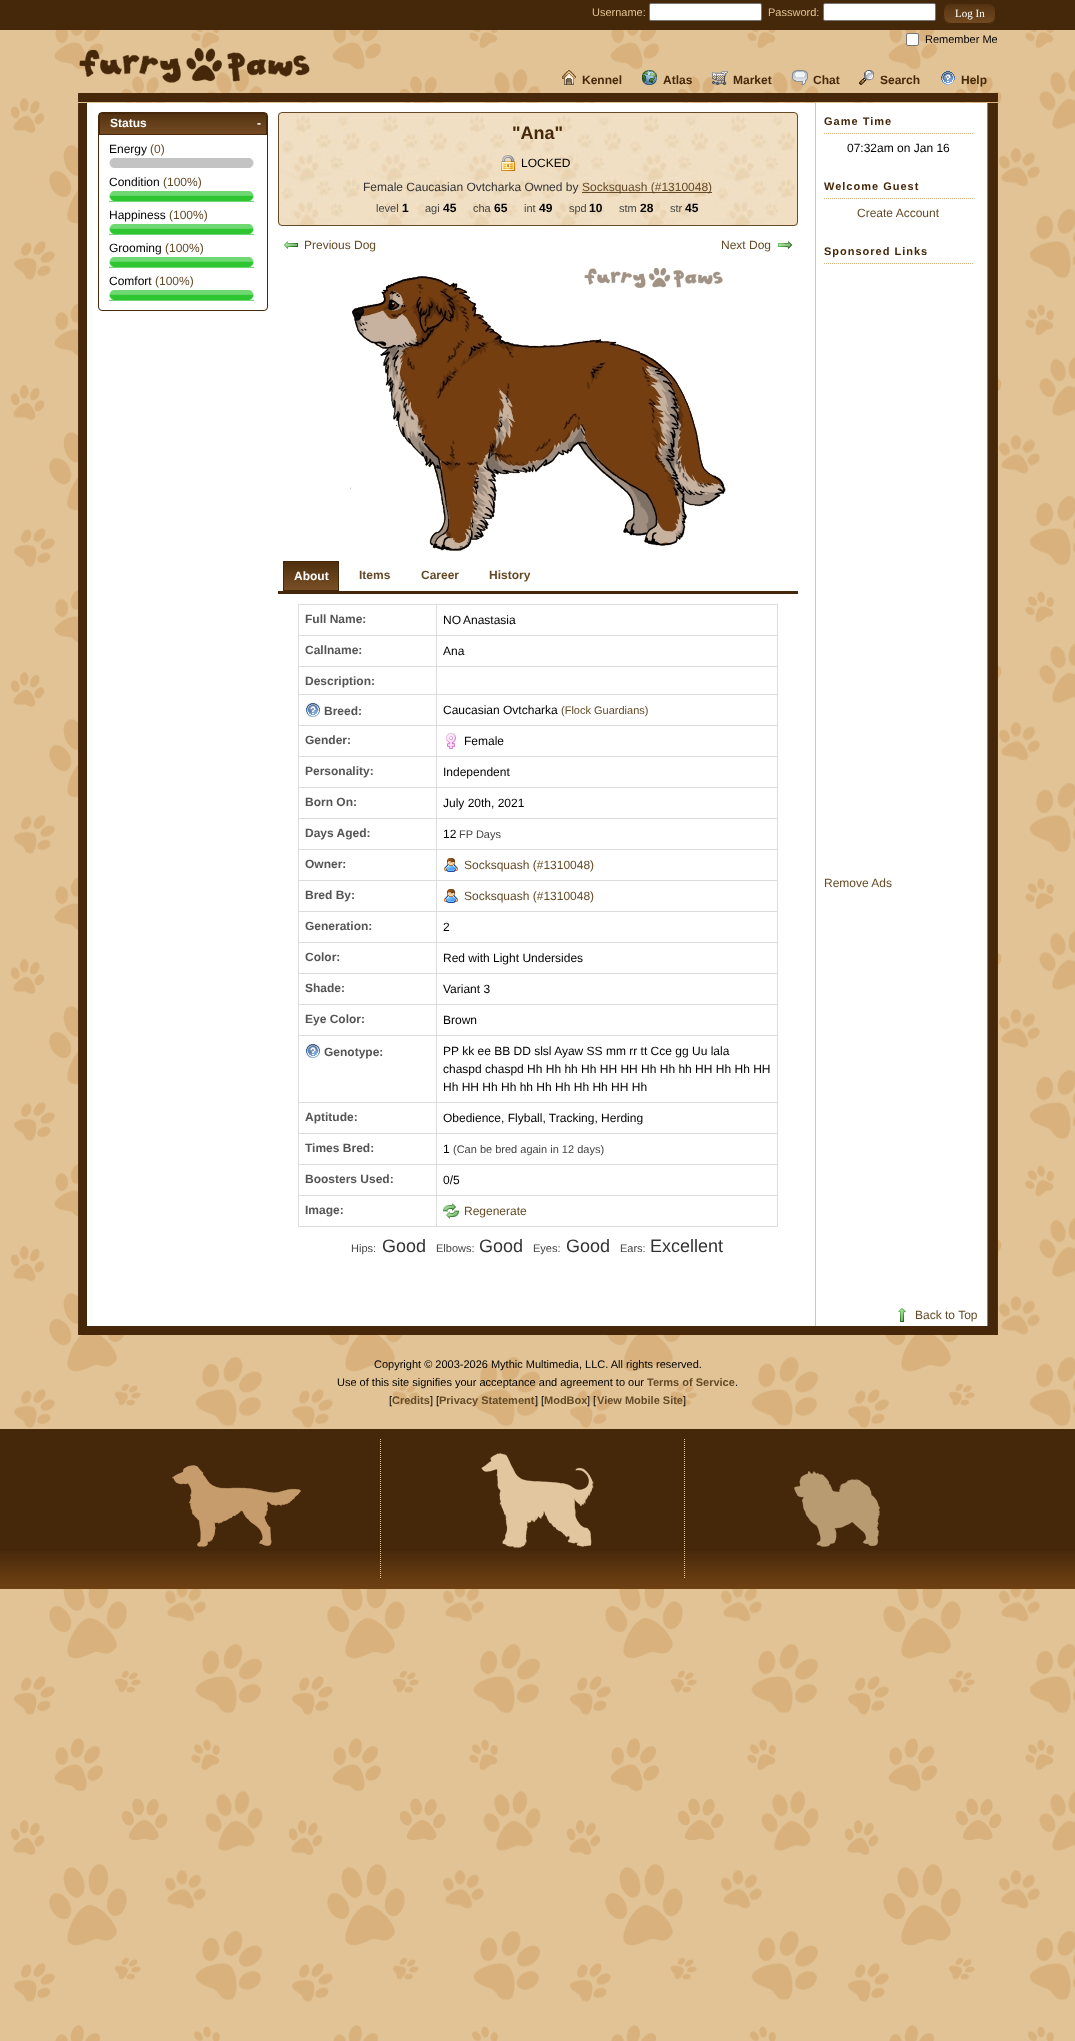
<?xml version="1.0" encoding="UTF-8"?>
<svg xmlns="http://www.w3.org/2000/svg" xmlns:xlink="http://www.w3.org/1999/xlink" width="1075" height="2041">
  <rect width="100%" height="100%" fill="#ffffff" />
  <image x="0" y="30" width="1075" height="2011" xlink:href="image1.png" />
  <rect width="1075" height="30" fill="#452709" />
  <rect x="649.5" y="3.5" width="112" height="17" rx="1.5" fill="#ffffff" stroke="#767676" />
  <rect x="823.5" y="3.5" width="112" height="17" rx="1.5" fill="#ffffff" stroke="#767676" />
  <image x="943" y="3" width="53" height="21" xlink:href="image2.png" />
  <rect x="943.5" y="3.5" width="52" height="20" rx="7.5" fill="none" stroke="#452709" />
  <rect x="906.5" y="33.5" width="12" height="12" rx="1.5" fill="#ffffff" stroke="#767676" />
  <image x="79" y="48" width="231" height="35" xlink:href="image3.png" />
  <image x="562" y="70" width="14" height="15" xlink:href="image4.png" />
  <image x="642" y="70" width="15" height="15" xlink:href="image5.png" />
  <image x="712" y="71" width="16" height="15" xlink:href="image6.png" />
  <image x="792" y="70" width="16" height="15" xlink:href="image7.png" />
  <image x="859" y="70" width="15" height="15" xlink:href="image8.png" />
  <image x="941" y="71" width="14" height="14" xlink:href="image9.png" />
  <image x="78" y="93" width="920" height="9" xlink:href="image10.png" />
  <image x="78" y="103" width="920" height="1223" xlink:href="image11.png" />
  <rect x="98.5" y="112.5" width="169" height="198" rx="3.5" fill="none" stroke="#452709" />
  <image x="100" y="114" width="166" height="20" xlink:href="image12.png" />
  <rect x="99.5" y="113.5" width="167" height="21" fill="none" stroke="#47280b" />
  <rect x="109" y="158" width="145" height="10" fill="#c3c3c3" />
  <image x="109" y="158" width="5" height="10" xlink:href="image13.png" />
  <image x="249" y="158" width="5" height="10" xlink:href="image14.png" />
  <rect x="109" y="191" width="145" height="11" fill="#2dc631" />
  <image x="109" y="191" width="145" height="11" xlink:href="image15.png" />
  <image x="109" y="191" width="5" height="10" xlink:href="image16.png" />
  <image x="249" y="191" width="5" height="10" xlink:href="image17.png" />
  <rect x="109" y="224" width="145" height="11" fill="#2dc631" />
  <image x="109" y="224" width="145" height="11" xlink:href="image15.png" />
  <image x="109" y="224" width="5" height="10" xlink:href="image16.png" />
  <image x="249" y="224" width="5" height="10" xlink:href="image17.png" />
  <rect x="109" y="257" width="145" height="11" fill="#2dc631" />
  <image x="109" y="257" width="145" height="11" xlink:href="image15.png" />
  <image x="109" y="257" width="5" height="10" xlink:href="image16.png" />
  <image x="249" y="257" width="5" height="10" xlink:href="image17.png" />
  <rect x="109" y="290" width="145" height="11" fill="#2dc631" />
  <image x="109" y="290" width="145" height="11" xlink:href="image15.png" />
  <image x="109" y="290" width="5" height="10" xlink:href="image16.png" />
  <image x="249" y="290" width="5" height="10" xlink:href="image17.png" />
  <image x="278" y="113" width="520" height="113" xlink:href="image18.png" />
  <rect x="278.5" y="112.5" width="519" height="113" rx="3.5" fill="none" stroke="#644a27" />
  <image x="501" y="155" width="14" height="16" xlink:href="image19.png" />
  <rect x="582" y="192" width="130" height="1" fill="#644a27" />
  <image x="284" y="241" width="14" height="8" xlink:href="image20.png" />
  <image x="778" y="241" width="14" height="8" xlink:href="image21.png" />
  <image x="350" y="268" width="376" height="284" xlink:href="image22.png" />
  <image x="284" y="562" width="54" height="28" xlink:href="image23.png" />
  <rect x="283.5" y="561.5" width="55" height="29" fill="none" stroke="#452709" />
  <rect x="278" y="591" width="520" height="3" fill="#452709" />
  <rect x="436" y="604" width="342" height="1" fill="#dddddd" />
  <rect x="436" y="635" width="342" height="1" fill="#dddddd" />
  <rect x="436" y="666" width="342" height="1" fill="#dddddd" />
  <rect x="436" y="694" width="342" height="1" fill="#dddddd" />
  <rect x="436" y="725" width="342" height="1" fill="#dddddd" />
  <rect x="436" y="756" width="342" height="1" fill="#dddddd" />
  <rect x="436" y="787" width="342" height="1" fill="#dddddd" />
  <rect x="436" y="818" width="342" height="1" fill="#dddddd" />
  <rect x="436" y="849" width="342" height="1" fill="#dddddd" />
  <rect x="436" y="880" width="342" height="1" fill="#dddddd" />
  <rect x="436" y="911" width="342" height="1" fill="#dddddd" />
  <rect x="436" y="942" width="342" height="1" fill="#dddddd" />
  <rect x="436" y="973" width="342" height="1" fill="#dddddd" />
  <rect x="436" y="1004" width="342" height="1" fill="#dddddd" />
  <rect x="436" y="1035" width="342" height="1" fill="#dddddd" />
  <rect x="436" y="1102" width="342" height="1" fill="#dddddd" />
  <rect x="436" y="1133" width="342" height="1" fill="#dddddd" />
  <rect x="436" y="1164" width="342" height="1" fill="#dddddd" />
  <rect x="436" y="1195" width="342" height="1" fill="#dddddd" />
  <rect x="777" y="1195" width="1" height="32" fill="#dddddd" />
  <rect x="436" y="1226" width="342" height="1" fill="#dddddd" />
  <rect x="436" y="1195" width="1" height="32" fill="#dddddd" />
  <rect x="298" y="1195" width="139" height="1" fill="#dddddd" />
  <rect x="436" y="1164" width="1" height="32" fill="#dddddd" />
  <rect x="298" y="1164" width="139" height="1" fill="#dddddd" />
  <rect x="436" y="1133" width="1" height="32" fill="#dddddd" />
  <rect x="298" y="1133" width="139" height="1" fill="#dddddd" />
  <rect x="436" y="1102" width="1" height="32" fill="#dddddd" />
  <rect x="298" y="1102" width="139" height="1" fill="#dddddd" />
  <rect x="436" y="1035" width="1" height="68" fill="#dddddd" />
  <rect x="298" y="1035" width="139" height="1" fill="#dddddd" />
  <rect x="436" y="1004" width="1" height="32" fill="#dddddd" />
  <rect x="298" y="1004" width="139" height="1" fill="#dddddd" />
  <rect x="436" y="973" width="1" height="32" fill="#dddddd" />
  <rect x="298" y="973" width="139" height="1" fill="#dddddd" />
  <rect x="436" y="942" width="1" height="32" fill="#dddddd" />
  <rect x="298" y="942" width="139" height="1" fill="#dddddd" />
  <rect x="436" y="911" width="1" height="32" fill="#dddddd" />
  <rect x="298" y="911" width="139" height="1" fill="#dddddd" />
  <rect x="436" y="880" width="1" height="32" fill="#dddddd" />
  <rect x="298" y="880" width="139" height="1" fill="#dddddd" />
  <rect x="436" y="849" width="1" height="32" fill="#dddddd" />
  <rect x="298" y="849" width="139" height="1" fill="#dddddd" />
  <rect x="436" y="818" width="1" height="32" fill="#dddddd" />
  <rect x="298" y="818" width="139" height="1" fill="#dddddd" />
  <rect x="436" y="787" width="1" height="32" fill="#dddddd" />
  <rect x="298" y="787" width="139" height="1" fill="#dddddd" />
  <rect x="436" y="756" width="1" height="32" fill="#dddddd" />
  <rect x="298" y="756" width="139" height="1" fill="#dddddd" />
  <rect x="436" y="725" width="1" height="32" fill="#dddddd" />
  <rect x="298" y="725" width="139" height="1" fill="#dddddd" />
  <rect x="436" y="694" width="1" height="32" fill="#dddddd" />
  <rect x="298" y="694" width="139" height="1" fill="#dddddd" />
  <rect x="436" y="666" width="1" height="29" fill="#dddddd" />
  <rect x="298" y="666" width="139" height="1" fill="#dddddd" />
  <rect x="436" y="635" width="1" height="32" fill="#dddddd" />
  <rect x="298" y="635" width="139" height="1" fill="#dddddd" />
  <rect x="436" y="604" width="1" height="32" fill="#dddddd" />
  <rect x="298" y="604" width="139" height="1" fill="#dddddd" />
  <rect x="298" y="1226" width="139" height="1" fill="#dddddd" />
  <rect x="298" y="1195" width="1" height="32" fill="#dddddd" />
  <rect x="298" y="1164" width="1" height="32" fill="#dddddd" />
  <rect x="298" y="1133" width="1" height="32" fill="#dddddd" />
  <rect x="298" y="1102" width="1" height="32" fill="#dddddd" />
  <rect x="298" y="1035" width="1" height="68" fill="#dddddd" />
  <rect x="298" y="1004" width="1" height="32" fill="#dddddd" />
  <rect x="298" y="973" width="1" height="32" fill="#dddddd" />
  <rect x="298" y="942" width="1" height="32" fill="#dddddd" />
  <rect x="298" y="911" width="1" height="32" fill="#dddddd" />
  <rect x="298" y="880" width="1" height="32" fill="#dddddd" />
  <rect x="298" y="849" width="1" height="32" fill="#dddddd" />
  <rect x="298" y="818" width="1" height="32" fill="#dddddd" />
  <rect x="298" y="787" width="1" height="32" fill="#dddddd" />
  <rect x="298" y="756" width="1" height="32" fill="#dddddd" />
  <rect x="298" y="725" width="1" height="32" fill="#dddddd" />
  <rect x="298" y="694" width="1" height="32" fill="#dddddd" />
  <rect x="298" y="666" width="1" height="29" fill="#dddddd" />
  <rect x="298" y="635" width="1" height="32" fill="#dddddd" />
  <rect x="298" y="604" width="1" height="32" fill="#dddddd" />
  <rect x="777" y="1164" width="1" height="32" fill="#dddddd" />
  <rect x="777" y="1133" width="1" height="32" fill="#dddddd" />
  <rect x="777" y="1102" width="1" height="32" fill="#dddddd" />
  <rect x="777" y="1035" width="1" height="68" fill="#dddddd" />
  <rect x="777" y="1004" width="1" height="32" fill="#dddddd" />
  <rect x="777" y="973" width="1" height="32" fill="#dddddd" />
  <rect x="777" y="942" width="1" height="32" fill="#dddddd" />
  <rect x="777" y="911" width="1" height="32" fill="#dddddd" />
  <rect x="777" y="880" width="1" height="32" fill="#dddddd" />
  <rect x="777" y="849" width="1" height="32" fill="#dddddd" />
  <rect x="777" y="818" width="1" height="32" fill="#dddddd" />
  <rect x="777" y="787" width="1" height="32" fill="#dddddd" />
  <rect x="777" y="756" width="1" height="32" fill="#dddddd" />
  <rect x="777" y="725" width="1" height="32" fill="#dddddd" />
  <rect x="777" y="694" width="1" height="32" fill="#dddddd" />
  <rect x="777" y="666" width="1" height="29" fill="#dddddd" />
  <rect x="777" y="635" width="1" height="32" fill="#dddddd" />
  <rect x="777" y="604" width="1" height="32" fill="#dddddd" />
  <image x="306" y="703" width="14" height="14" xlink:href="image24.png" />
  <image x="446" y="733" width="10" height="16" xlink:href="image25.png" />
  <image x="444" y="858" width="14" height="14" xlink:href="image26.png" />
  <image x="444" y="889" width="14" height="14" xlink:href="image26.png" />
  <image x="306" y="1044" width="14" height="14" xlink:href="image24.png" />
  <image x="443" y="1203" width="16" height="16" xlink:href="image27.png" />
  <path d="M 824 133.5 h 150" fill="none" stroke="#d8b17d" stroke-dasharray="1 1" />
  <path d="M 824 198.5 h 150" fill="none" stroke="#d8b17d" stroke-dasharray="1 1" />
  <path d="M 824 263.5 h 150" fill="none" stroke="#d8b17d" stroke-dasharray="1 1" />
  <image x="898" y="1308" width="8" height="14" xlink:href="image28.png" />
  <image x="78" y="1326" width="920" height="9" xlink:href="image10.png" />
  <rect y="1429" width="1075" height="122" fill="#452709" />
  <image x="0" y="1551" width="1075" height="38" xlink:href="image29.png" />
  <image x="172" y="1462" width="129" height="85" xlink:href="image30.png" />
  <path d="M 380.5 1439 v 140" fill="none" stroke="#e2c395" stroke-dasharray="1 1" />
  <image x="481" y="1453" width="113" height="95" xlink:href="image31.png" />
  <path d="M 684.5 1439 v 140" fill="none" stroke="#e2c395" stroke-dasharray="1 1" />
  <image x="794" y="1471" width="86" height="76" xlink:href="image32.png" />
  <text x="592" y="16" style="font-family: Liberation Sans; font-size: 11px; fill: #e2c395">Username:</text>
  <text x="768" y="16" style="font-family: Liberation Sans; font-size: 11px; fill: #e2c395">Password:</text>
  <text x="955" y="17" style="font-family: Liberation Serif; font-size: 11px; fill: #ffffff">Log In</text>
  <text x="925" y="43" style="font-family: Liberation Sans; font-size: 11px; fill: #000000">Remember Me</text>
  <text x="582" y="84" style="font-family: Liberation Sans; font-size: 12px; font-weight: bold; fill: #452709">Kennel</text>
  <text x="663" y="84" style="font-family: Liberation Sans; font-size: 12px; font-weight: bold; fill: #452709">Atlas</text>
  <text x="733" y="84" style="font-family: Liberation Sans; font-size: 12px; font-weight: bold; fill: #452709">Market</text>
  <text x="813" y="84" style="font-family: Liberation Sans; font-size: 12px; font-weight: bold; fill: #452709">Chat</text>
  <text x="880" y="84" style="font-family: Liberation Sans; font-size: 12px; font-weight: bold; fill: #452709">Search</text>
  <text x="961" y="84" style="font-family: Liberation Sans; font-size: 12px; font-weight: bold; fill: #452709">Help</text>
  <text x="110" y="127" style="font-family: Liberation Sans; font-size: 12px; font-weight: bold; fill: #ffffff">Status</text>
  <text x="257" y="127" style="font-family: Liberation Sans; font-size: 12px; font-weight: bold; fill: #ffffff">-</text>
  <text x="109" y="153" style="font-family: Liberation Sans; font-size: 12px; fill: #000000">Energy</text>
  <text x="150" y="153" style="font-family: Liberation Sans; font-size: 12px; fill: #644a27">(0)</text>
  <text x="109" y="186" style="font-family: Liberation Sans; font-size: 12px; fill: #000000">Condition</text>
  <text x="163" y="186" style="font-family: Liberation Sans; font-size: 12px; fill: #644a27">(100%)</text>
  <text x="109" y="219" style="font-family: Liberation Sans; font-size: 12px; fill: #000000">Happiness</text>
  <text x="169" y="219" style="font-family: Liberation Sans; font-size: 12px; fill: #644a27">(100%)</text>
  <text x="109" y="252" style="font-family: Liberation Sans; font-size: 12px; fill: #000000">Grooming</text>
  <text x="165" y="252" style="font-family: Liberation Sans; font-size: 12px; fill: #644a27">(100%)</text>
  <text x="109" y="285" style="font-family: Liberation Sans; font-size: 12px; fill: #000000">Comfort</text>
  <text x="155" y="285" style="font-family: Liberation Sans; font-size: 12px; fill: #644a27">(100%)</text>
  <text x="512" y="139" style="font-family: Liberation Sans; font-size: 18px; font-weight: bold; fill: #452709">"Ana"</text>
  <text x="521" y="167" style="font-family: Liberation Sans; font-size: 12px; fill: #000000">LOCKED</text>
  <text x="363" y="191" style="font-family: Liberation Sans; font-size: 12px; fill: #333333">Female Caucasian Ovtcharka Owned by</text>
  <text x="582" y="191" style="font-family: Liberation Sans; font-size: 12px; fill: #644a27">Socksquash (#1310048)</text>
  <text x="376" y="212" style="font-family: Liberation Sans; font-size: 11px; fill: #444444">level</text>
  <text x="402" y="212" style="font-family: Liberation Sans; font-size: 12px; font-weight: bold; fill: #000000">1</text>
  <text x="425" y="212" style="font-family: Liberation Sans; font-size: 11px; fill: #444444">agi</text>
  <text x="443" y="212" style="font-family: Liberation Sans; font-size: 12px; font-weight: bold; fill: #000000">45</text>
  <text x="473" y="212" style="font-family: Liberation Sans; font-size: 11px; fill: #444444">cha</text>
  <text x="494" y="212" style="font-family: Liberation Sans; font-size: 12px; font-weight: bold; fill: #000000">65</text>
  <text x="524" y="212" style="font-family: Liberation Sans; font-size: 11px; fill: #444444">int</text>
  <text x="539" y="212" style="font-family: Liberation Sans; font-size: 12px; font-weight: bold; fill: #000000">49</text>
  <text x="569" y="212" style="font-family: Liberation Sans; font-size: 11px; fill: #444444">spd</text>
  <text x="589" y="212" style="font-family: Liberation Sans; font-size: 12px; font-weight: bold; fill: #000000">10</text>
  <text x="619" y="212" style="font-family: Liberation Sans; font-size: 11px; fill: #444444">stm</text>
  <text x="640" y="212" style="font-family: Liberation Sans; font-size: 12px; font-weight: bold; fill: #000000">28</text>
  <text x="670" y="212" style="font-family: Liberation Sans; font-size: 11px; fill: #444444">str</text>
  <text x="685" y="212" style="font-family: Liberation Sans; font-size: 12px; font-weight: bold; fill: #000000">45</text>
  <text x="304" y="249" style="font-family: Liberation Sans; font-size: 12px; fill: #644a27">Previous Dog</text>
  <text x="721" y="249" style="font-family: Liberation Sans; font-size: 12px; fill: #644a27">Next Dog</text>
  <text x="294" y="580" style="font-family: Liberation Sans; font-size: 12px; font-weight: bold; fill: #ffffff">About</text>
  <text x="359" y="579" style="font-family: Liberation Sans; font-size: 12px; font-weight: bold; fill: #644a27">Items</text>
  <text x="421" y="579" style="font-family: Liberation Sans; font-size: 12px; font-weight: bold; fill: #644a27">Career</text>
  <text x="489" y="579" style="font-family: Liberation Sans; font-size: 12px; font-weight: bold; fill: #644a27">History</text>
  <text x="305" y="623" style="font-family: Liberation Sans; font-size: 12px; font-weight: bold; fill: #555555">Full Name:</text>
  <text x="443" y="624" style="font-family: Liberation Sans; font-size: 12px; fill: #000000">NO</text>
  <text x="463" y="624" style="font-family: Liberation Sans; font-size: 12px; fill: #000000">Anastasia</text>
  <text x="305" y="654" style="font-family: Liberation Sans; font-size: 12px; font-weight: bold; fill: #555555">Callname:</text>
  <text x="443" y="655" style="font-family: Liberation Sans; font-size: 12px; fill: #000000">Ana</text>
  <text x="305" y="685" style="font-family: Liberation Sans; font-size: 12px; font-weight: bold; fill: #555555">Description:</text>
  <text x="324" y="715" style="font-family: Liberation Sans; font-size: 12px; font-weight: bold; fill: #555555">Breed:</text>
  <text x="443" y="714" style="font-family: Liberation Sans; font-size: 12px; fill: #000000">Caucasian Ovtcharka</text>
  <text x="561" y="714" style="font-family: Liberation Sans; font-size: 11px; fill: #644a27">(Flock Guardians)</text>
  <text x="305" y="744" style="font-family: Liberation Sans; font-size: 12px; font-weight: bold; fill: #555555">Gender:</text>
  <text x="464" y="745" style="font-family: Liberation Sans; font-size: 12px; fill: #000000">Female</text>
  <text x="305" y="775" style="font-family: Liberation Sans; font-size: 12px; font-weight: bold; fill: #555555">Personality:</text>
  <text x="443" y="776" style="font-family: Liberation Sans; font-size: 12px; fill: #000000">Independent</text>
  <text x="305" y="806" style="font-family: Liberation Sans; font-size: 12px; font-weight: bold; fill: #555555">Born On:</text>
  <text x="443" y="807" style="font-family: Liberation Sans; font-size: 12px; fill: #000000">July 20th, 2021</text>
  <text x="305" y="837" style="font-family: Liberation Sans; font-size: 12px; font-weight: bold; fill: #555555">Days Aged:</text>
  <text x="443" y="838" style="font-family: Liberation Sans; font-size: 12px; fill: #000000">12</text>
  <text x="459" y="838" style="font-family: Liberation Sans; font-size: 11px; fill: #444444">FP Days</text>
  <text x="305" y="868" style="font-family: Liberation Sans; font-size: 12px; font-weight: bold; fill: #555555">Owner:</text>
  <text x="464" y="869" style="font-family: Liberation Sans; font-size: 12px; fill: #644a27">Socksquash (#1310048)</text>
  <text x="305" y="899" style="font-family: Liberation Sans; font-size: 12px; font-weight: bold; fill: #555555">Bred By:</text>
  <text x="464" y="900" style="font-family: Liberation Sans; font-size: 12px; fill: #644a27">Socksquash (#1310048)</text>
  <text x="305" y="930" style="font-family: Liberation Sans; font-size: 12px; font-weight: bold; fill: #555555">Generation:</text>
  <text x="443" y="931" style="font-family: Liberation Sans; font-size: 12px; fill: #000000">2</text>
  <text x="305" y="961" style="font-family: Liberation Sans; font-size: 12px; font-weight: bold; fill: #555555">Color:</text>
  <text x="443" y="962" style="font-family: Liberation Sans; font-size: 12px; fill: #000000">Red with Light Undersides</text>
  <text x="305" y="992" style="font-family: Liberation Sans; font-size: 12px; font-weight: bold; fill: #555555">Shade:</text>
  <text x="443" y="993" style="font-family: Liberation Sans; font-size: 12px; fill: #000000">Variant 3</text>
  <text x="305" y="1023" style="font-family: Liberation Sans; font-size: 12px; font-weight: bold; fill: #555555">Eye Color:</text>
  <text x="443" y="1024" style="font-family: Liberation Sans; font-size: 12px; fill: #000000">Brown</text>
  <text x="324" y="1056" style="font-family: Liberation Sans; font-size: 12px; font-weight: bold; fill: #555555">Genotype:</text>
  <text x="443" y="1055" style="font-family: Liberation Sans; font-size: 12px; fill: #000000">PP kk ee BB DD slsl Ayaw SS mm rr tt Cce gg Uu lala</text>
  <text x="443" y="1073" style="font-family: Liberation Sans; font-size: 12px; fill: #000000">chaspd chaspd Hh Hh hh Hh HH HH Hh Hh hh HH Hh Hh HH</text>
  <text x="443" y="1091" style="font-family: Liberation Sans; font-size: 12px; fill: #000000">Hh HH Hh Hh hh Hh Hh Hh Hh HH Hh</text>
  <text x="305" y="1121" style="font-family: Liberation Sans; font-size: 12px; font-weight: bold; fill: #555555">Aptitude:</text>
  <text x="443" y="1122" style="font-family: Liberation Sans; font-size: 12px; fill: #000000">Obedience, Flyball, Tracking, Herding</text>
  <text x="305" y="1152" style="font-family: Liberation Sans; font-size: 12px; font-weight: bold; fill: #555555">Times Bred:</text>
  <text x="443" y="1153" style="font-family: Liberation Sans; font-size: 12px; fill: #000000">1</text>
  <text x="453" y="1153" style="font-family: Liberation Sans; font-size: 11px; fill: #444444">(Can be bred again in 12 days)</text>
  <text x="305" y="1183" style="font-family: Liberation Sans; font-size: 12px; font-weight: bold; fill: #555555">Boosters Used:</text>
  <text x="443" y="1184" style="font-family: Liberation Sans; font-size: 12px; fill: #000000">0/5</text>
  <text x="305" y="1214" style="font-family: Liberation Sans; font-size: 12px; font-weight: bold; fill: #555555">Image:</text>
  <text x="464" y="1215" style="font-family: Liberation Sans; font-size: 12px; fill: #644a27">Regenerate</text>
  <text x="351" y="1252" style="font-family: Liberation Sans; font-size: 11px; fill: #444444">Hips:</text>
  <text x="382" y="1252" style="font-family: Liberation Sans; font-size: 18px; fill: #333333">Good</text>
  <text x="436" y="1252" style="font-family: Liberation Sans; font-size: 11px; fill: #444444">Elbows:</text>
  <text x="479" y="1252" style="font-family: Liberation Sans; font-size: 18px; fill: #333333">Good</text>
  <text x="533" y="1252" style="font-family: Liberation Sans; font-size: 11px; fill: #444444">Eyes:</text>
  <text x="566" y="1252" style="font-family: Liberation Sans; font-size: 18px; fill: #333333">Good</text>
  <text x="620" y="1252" style="font-family: Liberation Sans; font-size: 11px; fill: #444444">Ears:</text>
  <text x="650" y="1252" style="font-family: Liberation Sans; font-size: 18px; fill: #333333">Excellent</text>
  <text x="824" y="125" style="font-family: Liberation Sans; font-size: 11px; font-weight: bold; letter-spacing: 1px; fill: #452709">Game Time</text>
  <text x="847" y="152" style="font-family: Liberation Sans; font-size: 12px; fill: #000000">07:32am on Jan 16</text>
  <text x="824" y="190" style="font-family: Liberation Sans; font-size: 11px; font-weight: bold; letter-spacing: 1px; fill: #452709">Welcome Guest</text>
  <text x="857" y="217" style="font-family: Liberation Sans; font-size: 12px; fill: #644a27">Create Account</text>
  <text x="824" y="255" style="font-family: Liberation Sans; font-size: 11px; font-weight: bold; letter-spacing: 1px; fill: #452709">Sponsored Links</text>
  <text x="824" y="887" style="font-family: Liberation Sans; font-size: 12px; fill: #644a27">Remove Ads</text>
  <text x="915" y="1319" style="font-family: Liberation Sans; font-size: 12px; fill: #644a27">Back to Top</text>
  <text x="374" y="1368" style="font-family: Liberation Sans; font-size: 11px; fill: #000000">Copyright © 2003-2026 Mythic Multimedia, LLC. All rights reserved.</text>
  <text x="337" y="1386" style="font-family: Liberation Sans; font-size: 11px; fill: #000000">Use of this site signifies your acceptance and agreement to our</text>
  <text x="647" y="1386" style="font-family: Liberation Sans; font-size: 11px; font-weight: bold; fill: #644a27">Terms of Service</text>
  <text x="735" y="1386" style="font-family: Liberation Sans; font-size: 11px; fill: #000000">.</text>
  <text x="389" y="1404" style="font-family: Liberation Sans; font-size: 11px; fill: #000000">[</text>
  <text x="392" y="1404" style="font-family: Liberation Sans; font-size: 11px; font-weight: bold; fill: #644a27">Credits</text>
  <text x="430" y="1404" style="font-family: Liberation Sans; font-size: 11px; fill: #000000">] [</text>
  <text x="439" y="1404" style="font-family: Liberation Sans; font-size: 11px; font-weight: bold; fill: #644a27">Privacy Statement</text>
  <text x="535" y="1404" style="font-family: Liberation Sans; font-size: 11px; fill: #000000">] [</text>
  <text x="544" y="1404" style="font-family: Liberation Sans; font-size: 11px; font-weight: bold; fill: #644a27">ModBox</text>
  <text x="587" y="1404" style="font-family: Liberation Sans; font-size: 11px; fill: #000000">] [</text>
  <text x="597" y="1404" style="font-family: Liberation Sans; font-size: 11px; font-weight: bold; fill: #644a27">View Mobile Site</text>
  <text x="683" y="1404" style="font-family: Liberation Sans; font-size: 11px; fill: #000000">]</text>
</svg>
